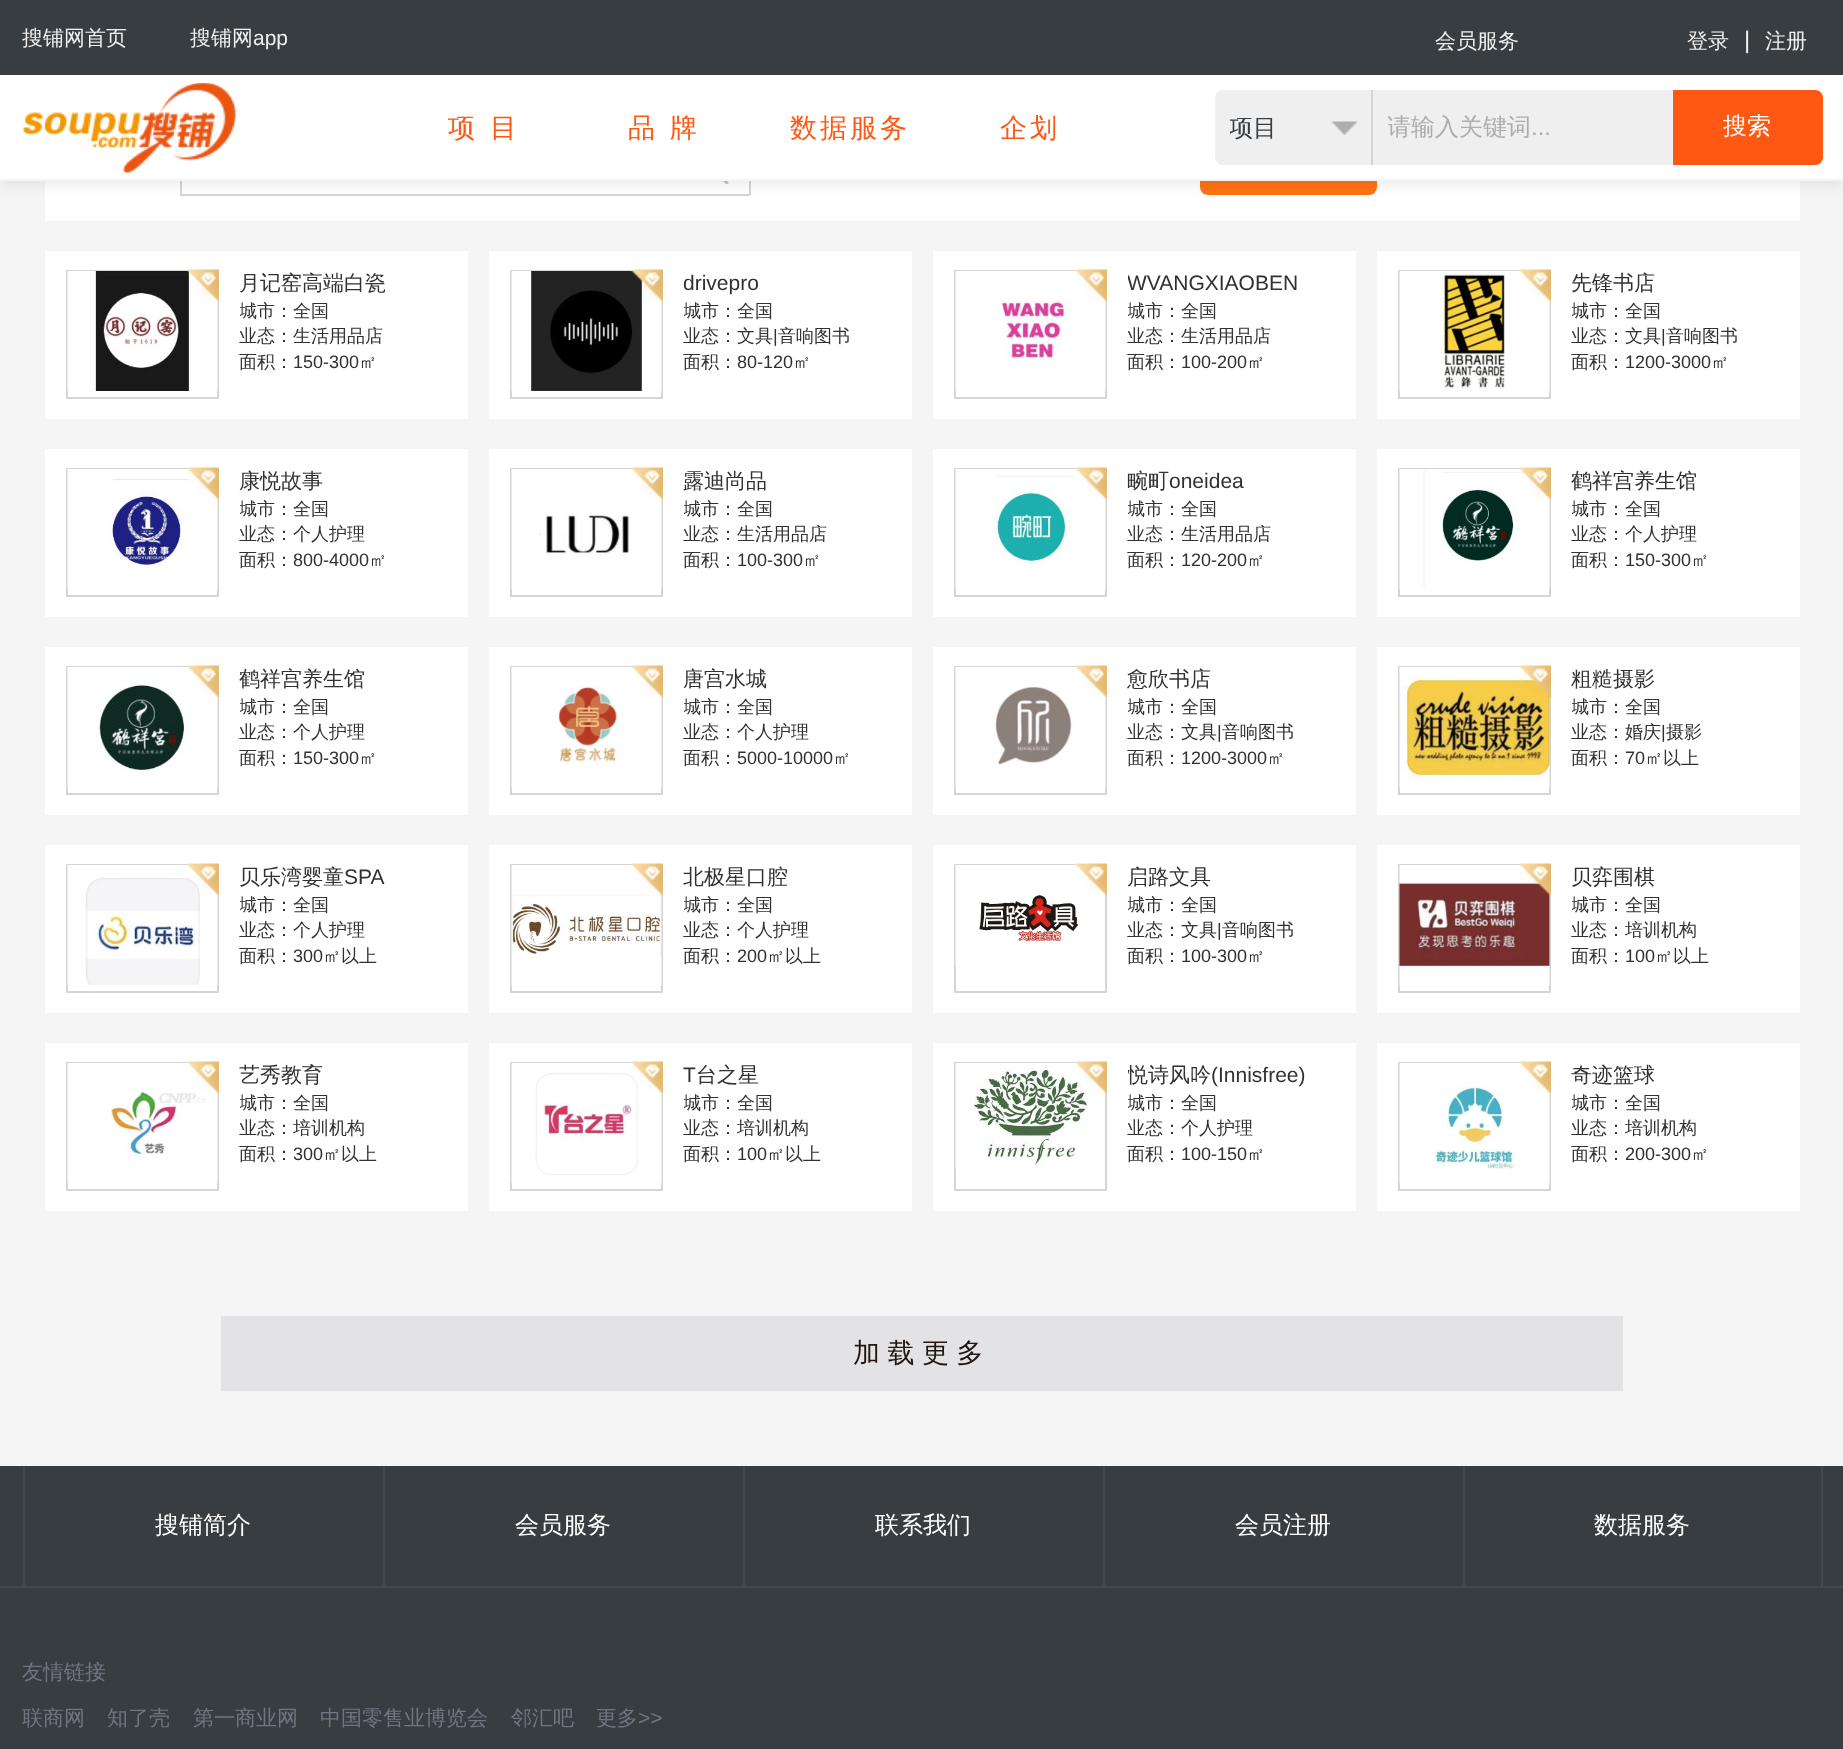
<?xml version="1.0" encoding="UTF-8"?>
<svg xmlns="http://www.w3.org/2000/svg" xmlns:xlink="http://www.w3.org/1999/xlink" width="1843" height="1749">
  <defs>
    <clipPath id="clip1"><rect x="1230" y="116" width="141" height="25" /></clipPath>
    <clipPath id="clip2"><rect x="1388" y="113" width="285" height="31" /></clipPath>
    <clipPath id="clip3"><rect x="240" y="300" width="228" height="21" /></clipPath>
    <clipPath id="clip4"><rect x="684" y="300" width="228" height="21" /></clipPath>
    <clipPath id="clip5"><rect x="1128" y="270" width="228" height="26" /></clipPath>
    <clipPath id="clip6"><rect x="1128" y="300" width="228" height="21" /></clipPath>
    <clipPath id="clip7"><rect x="1572" y="300" width="228" height="21" /></clipPath>
    <clipPath id="clip8"><rect x="240" y="498" width="228" height="21" /></clipPath>
    <clipPath id="clip9"><rect x="684" y="498" width="228" height="21" /></clipPath>
    <clipPath id="clip10"><rect x="1128" y="498" width="228" height="21" /></clipPath>
    <clipPath id="clip11"><rect x="1572" y="498" width="228" height="21" /></clipPath>
    <clipPath id="clip12"><rect x="240" y="696" width="228" height="21" /></clipPath>
    <clipPath id="clip13"><rect x="684" y="696" width="228" height="21" /></clipPath>
    <clipPath id="clip14"><rect x="1128" y="696" width="228" height="21" /></clipPath>
    <clipPath id="clip15"><rect x="1572" y="696" width="228" height="21" /></clipPath>
    <clipPath id="clip16"><rect x="240" y="894" width="228" height="21" /></clipPath>
    <clipPath id="clip17"><rect x="684" y="894" width="228" height="21" /></clipPath>
    <clipPath id="clip18"><rect x="1128" y="894" width="228" height="21" /></clipPath>
    <clipPath id="clip19"><rect x="1572" y="894" width="228" height="21" /></clipPath>
    <clipPath id="clip20"><rect x="240" y="1092" width="228" height="21" /></clipPath>
    <clipPath id="clip21"><rect x="684" y="1092" width="228" height="21" /></clipPath>
    <clipPath id="clip22"><rect x="1128" y="1062" width="228" height="26" /></clipPath>
    <clipPath id="clip23"><rect x="1128" y="1092" width="228" height="21" /></clipPath>
    <clipPath id="clip24"><rect x="1572" y="1092" width="228" height="21" /></clipPath>
  </defs>
  <rect width="100%" height="100%" fill="#f5f5f5" />
  <rect x="45" y="181" width="1755" height="40" fill="#ffffff" />
  <rect x="180" y="194" width="495" height="2" fill="#d5d5d5" />
  <rect x="180" y="181" width="2" height="14" fill="#d5d5d5" />
  <image x="722" y="181" width="7" height="3" xlink:href="image3.png" />
  <rect x="749" y="181" width="2" height="14" fill="#d5d5d5" />
  <rect x="675" y="194" width="75" height="2" fill="#d5d5d5" />
  <rect x="1200" y="143" width="177" height="52" rx="8" fill="#fe7314" />
  <rect y="78" width="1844" height="105" fill="#000000" fill-opacity="0.1" filter="blur(7.5px)" />
  <rect width="1843" height="75" fill="#373d41" />
  <rect y="75" width="1843" height="104" fill="#ffffff" />
  <rect y="179" width="1843" height="2" fill="#f5f5f5" />
  <image x="22" y="83" width="214" height="90" xlink:href="image1.png" />
  <path d="M 1223 90 h 150 v 75 h -150 c -4.5 0 -8 -3.5 -8 -8 v -59 c 0 -4.5 3.5 -8 8 -8 z" fill="#efefef" />
  <image x="1331" y="121" width="27" height="14" xlink:href="image2.png" />
  <rect x="1371" y="90" width="2" height="75" fill="#d4d5d6" />
  <rect x="1373" y="90" width="300" height="75" fill="#efefef" />
  <path d="M 1673 90 h 142 c 4.5 0 8 3.5 8 8 v 59 c 0 4.5 -3.5 8 -8 8 h -142 z" fill="#ff5812" />
  <rect x="45" y="251" width="423" height="168" fill="#ffffff" />
  <rect x="67" y="271" width="151" height="127" fill="none" stroke="#d5d5d5" stroke-width="2" />
  <image x="67" y="271" width="151" height="120" xlink:href="image5.png" />
  <image x="186" y="269" width="33" height="32" xlink:href="image4.png" />
  <rect x="489" y="251" width="423" height="168" fill="#ffffff" />
  <rect x="511" y="271" width="151" height="127" fill="none" stroke="#d5d5d5" stroke-width="2" />
  <image x="511" y="271" width="151" height="120" xlink:href="image7.png" />
  <image x="630" y="269" width="33" height="32" xlink:href="image6.png" />
  <rect x="933" y="251" width="423" height="168" fill="#ffffff" />
  <rect x="955" y="271" width="151" height="127" fill="none" stroke="#d5d5d5" stroke-width="2" />
  <image x="955" y="271" width="151" height="120" xlink:href="image9.png" />
  <image x="1074" y="269" width="33" height="32" xlink:href="image8.png" />
  <rect x="1377" y="251" width="423" height="168" fill="#ffffff" />
  <rect x="1399" y="271" width="151" height="127" fill="none" stroke="#d5d5d5" stroke-width="2" />
  <image x="1399" y="271" width="151" height="120" xlink:href="image11.png" />
  <image x="1518" y="269" width="33" height="32" xlink:href="image10.png" />
  <rect x="45" y="449" width="423" height="168" fill="#ffffff" />
  <rect x="67" y="469" width="151" height="127" fill="none" stroke="#d5d5d5" stroke-width="2" />
  <image x="67" y="469" width="151" height="120" xlink:href="image13.png" />
  <image x="186" y="467" width="33" height="32" xlink:href="image12.png" />
  <rect x="489" y="449" width="423" height="168" fill="#ffffff" />
  <rect x="511" y="469" width="151" height="127" fill="none" stroke="#d5d5d5" stroke-width="2" />
  <image x="511" y="469" width="151" height="120" xlink:href="image15.png" />
  <image x="630" y="467" width="33" height="32" xlink:href="image14.png" />
  <rect x="933" y="449" width="423" height="168" fill="#ffffff" />
  <rect x="955" y="469" width="151" height="127" fill="none" stroke="#d5d5d5" stroke-width="2" />
  <image x="955" y="469" width="151" height="120" xlink:href="image17.png" />
  <image x="1074" y="467" width="33" height="32" xlink:href="image16.png" />
  <rect x="1377" y="449" width="423" height="168" fill="#ffffff" />
  <rect x="1399" y="469" width="151" height="127" fill="none" stroke="#d5d5d5" stroke-width="2" />
  <image x="1399" y="469" width="151" height="120" xlink:href="image19.png" />
  <image x="1518" y="467" width="33" height="32" xlink:href="image18.png" />
  <rect x="45" y="647" width="423" height="168" fill="#ffffff" />
  <rect x="67" y="667" width="151" height="127" fill="none" stroke="#d5d5d5" stroke-width="2" />
  <image x="67" y="667" width="151" height="120" xlink:href="image20.png" />
  <image x="186" y="665" width="33" height="32" xlink:href="image14.png" />
  <rect x="489" y="647" width="423" height="168" fill="#ffffff" />
  <rect x="511" y="667" width="151" height="127" fill="none" stroke="#d5d5d5" stroke-width="2" />
  <image x="511" y="667" width="151" height="120" xlink:href="image21.png" />
  <image x="630" y="665" width="33" height="32" xlink:href="image14.png" />
  <rect x="933" y="647" width="423" height="168" fill="#ffffff" />
  <rect x="955" y="667" width="151" height="127" fill="none" stroke="#d5d5d5" stroke-width="2" />
  <image x="955" y="667" width="151" height="120" xlink:href="image22.png" />
  <image x="1074" y="665" width="33" height="32" xlink:href="image8.png" />
  <rect x="1377" y="647" width="423" height="168" fill="#ffffff" />
  <rect x="1399" y="667" width="151" height="127" fill="none" stroke="#d5d5d5" stroke-width="2" />
  <image x="1399" y="667" width="151" height="120" xlink:href="image24.png" />
  <image x="1518" y="665" width="33" height="32" xlink:href="image23.png" />
  <rect x="45" y="845" width="423" height="168" fill="#ffffff" />
  <rect x="67" y="865" width="151" height="127" fill="none" stroke="#d5d5d5" stroke-width="2" />
  <image x="67" y="865" width="151" height="120" xlink:href="image26.png" />
  <image x="186" y="863" width="33" height="32" xlink:href="image25.png" />
  <rect x="489" y="845" width="423" height="168" fill="#ffffff" />
  <rect x="511" y="865" width="151" height="127" fill="none" stroke="#d5d5d5" stroke-width="2" />
  <image x="511" y="865" width="151" height="120" xlink:href="image28.png" />
  <image x="630" y="863" width="33" height="32" xlink:href="image27.png" />
  <rect x="933" y="845" width="423" height="168" fill="#ffffff" />
  <rect x="955" y="865" width="151" height="127" fill="none" stroke="#d5d5d5" stroke-width="2" />
  <image x="955" y="865" width="149" height="101" xlink:href="image30.png" />
  <image x="1074" y="863" width="33" height="32" xlink:href="image29.png" />
  <rect x="1377" y="845" width="423" height="168" fill="#ffffff" />
  <rect x="1399" y="865" width="151" height="127" fill="none" stroke="#d5d5d5" stroke-width="2" />
  <image x="1399" y="865" width="151" height="120" xlink:href="image32.png" />
  <image x="1518" y="863" width="33" height="32" xlink:href="image31.png" />
  <rect x="45" y="1043" width="423" height="168" fill="#ffffff" />
  <rect x="67" y="1063" width="151" height="127" fill="none" stroke="#d5d5d5" stroke-width="2" />
  <image x="67" y="1063" width="151" height="120" xlink:href="image34.png" />
  <image x="186" y="1061" width="33" height="32" xlink:href="image33.png" />
  <rect x="489" y="1043" width="423" height="168" fill="#ffffff" />
  <rect x="511" y="1063" width="151" height="127" fill="none" stroke="#d5d5d5" stroke-width="2" />
  <image x="511" y="1063" width="151" height="120" xlink:href="image36.png" />
  <image x="630" y="1061" width="33" height="32" xlink:href="image35.png" />
  <rect x="933" y="1043" width="423" height="168" fill="#ffffff" />
  <rect x="955" y="1063" width="151" height="127" fill="none" stroke="#d5d5d5" stroke-width="2" />
  <image x="955" y="1063" width="149" height="107" xlink:href="image38.png" />
  <image x="1074" y="1061" width="33" height="32" xlink:href="image37.png" />
  <rect x="1377" y="1043" width="423" height="168" fill="#ffffff" />
  <rect x="1399" y="1063" width="151" height="127" fill="none" stroke="#d5d5d5" stroke-width="2" />
  <image x="1399" y="1063" width="151" height="120" xlink:href="image39.png" />
  <image x="1518" y="1061" width="33" height="32" xlink:href="image10.png" />
  <rect x="221" y="1316" width="1402" height="75" fill="#e3e3e5" />
  <rect y="1466" width="1843" height="283" fill="#373d41" />
  <rect y="1586" width="1843" height="2" fill="#43484c" />
  <rect x="23" y="1466" width="2" height="120" fill="#43484c" />
  <rect x="383" y="1466" width="2" height="120" fill="#43484c" />
  <rect x="743" y="1466" width="2" height="120" fill="#43484c" />
  <rect x="1103" y="1466" width="2" height="120" fill="#43484c" />
  <rect x="1821" y="1466" width="2" height="120" fill="#43484c" />
  <rect x="1463" y="1466" width="2" height="120" fill="#43484c" />
  <text x="22" y="45" style="font-family: WenQuanYi Zen Hei; font-size: 21px; font-weight: 500; fill: #efefef">搜铺网首页</text>
  <text x="190" y="45" style="font-family: WenQuanYi Zen Hei; font-size: 21px; font-weight: 500; fill: #efefef">搜铺网</text>
  <text x="253" y="45" style="font-family: Liberation Sans; font-size: 21px; fill: #efefef">app</text>
  <text x="1435" y="48" style="font-family: WenQuanYi Zen Hei; font-size: 21px; font-weight: 500; fill: #efefef">会员服务</text>
  <text x="1687" y="48" style="font-family: WenQuanYi Zen Hei; font-size: 21px; font-weight: 500; fill: #efefef">登录</text>
  <text x="1744" y="48" style="font-family: Liberation Sans; font-size: 24px; fill: #efefef">|</text>
  <text x="1765" y="48" style="font-family: WenQuanYi Zen Hei; font-size: 21px; font-weight: 500; fill: #efefef">注册</text>
  <text x="448" y="137" style="font-family: WenQuanYi Zen Hei; font-size: 27px; font-weight: 500; letter-spacing: 15px; fill: #ff5812">项目</text>
  <text x="628" y="137" style="font-family: WenQuanYi Zen Hei; font-size: 27px; font-weight: 500; letter-spacing: 15px; fill: #ff5812">品牌</text>
  <text x="790" y="137" style="font-family: WenQuanYi Zen Hei; font-size: 27px; font-weight: 500; letter-spacing: 3px; fill: #ff5812">数据服务</text>
  <text x="1000" y="137" style="font-family: WenQuanYi Zen Hei; font-size: 27px; font-weight: 500; letter-spacing: 3px; fill: #ff5812">企划</text>
  <g clip-path="url(#clip1)">
    <text x="1229" y="136" style="font-family: WenQuanYi Zen Hei; font-size: 24px; font-weight: 500; fill: #373d41">项目</text>
  </g>
  <g clip-path="url(#clip2)">
    <text x="1387" y="135" style="font-family: WenQuanYi Zen Hei; font-size: 24px; font-weight: 500; fill: #adadad">请输入关键词</text>
  </g>
  <text x="1531" y="135" style="font-family: Liberation Sans; font-size: 24px; fill: #adadad">...</text>
  <text x="1723" y="134" style="font-family: WenQuanYi Zen Hei; font-size: 24px; font-weight: 500; fill: #ffffff">搜索</text>
  <text x="239" y="290" style="font-family: WenQuanYi Zen Hei; font-size: 21px; font-weight: 500; fill: #313131">月记窑高端白瓷</text>
  <g clip-path="url(#clip3)">
    <text x="239" y="317" style="font-family: WenQuanYi Zen Hei; font-size: 18px; font-weight: 500; fill: #313131">城市：</text>
  </g>
  <text x="293" y="317" style="font-family: WenQuanYi Zen Hei; font-size: 18px; font-weight: 500; fill: #313131">全国</text>
  <text x="239" y="342" style="font-family: WenQuanYi Zen Hei; font-size: 18px; font-weight: 500; fill: #313131">业态：生活用品店</text>
  <text x="239" y="368" style="font-family: WenQuanYi Zen Hei; font-size: 18px; font-weight: 500; fill: #313131">面积：</text>
  <text x="293" y="368" style="font-family: Liberation Sans; font-size: 18px; fill: #313131">150-300</text>
  <text x="359" y="368" style="font-family: WenQuanYi Zen Hei; font-size: 18px; font-weight: 500; fill: #313131">㎡</text>
  <text x="683" y="290" style="font-family: Liberation Sans; font-size: 21px; fill: #313131">drivepro</text>
  <g clip-path="url(#clip4)">
    <text x="683" y="317" style="font-family: WenQuanYi Zen Hei; font-size: 18px; font-weight: 500; fill: #313131">城市：</text>
  </g>
  <text x="737" y="317" style="font-family: WenQuanYi Zen Hei; font-size: 18px; font-weight: 500; fill: #313131">全国</text>
  <text x="683" y="342" style="font-family: WenQuanYi Zen Hei; font-size: 18px; font-weight: 500; fill: #313131">业态：文具</text>
  <text x="773" y="342" style="font-family: Liberation Sans; font-size: 18px; fill: #313131">|</text>
  <text x="778" y="342" style="font-family: WenQuanYi Zen Hei; font-size: 18px; font-weight: 500; fill: #313131">音响图书</text>
  <text x="683" y="368" style="font-family: WenQuanYi Zen Hei; font-size: 18px; font-weight: 500; fill: #313131">面积：</text>
  <text x="737" y="368" style="font-family: Liberation Sans; font-size: 18px; fill: #313131">80-120</text>
  <text x="793" y="368" style="font-family: WenQuanYi Zen Hei; font-size: 18px; font-weight: 500; fill: #313131">㎡</text>
  <g clip-path="url(#clip5)">
    <text x="1127" y="290" style="font-family: Liberation Sans; font-size: 21px; fill: #313131">WVANGXIAOBEN</text>
  </g>
  <g clip-path="url(#clip6)">
    <text x="1127" y="317" style="font-family: WenQuanYi Zen Hei; font-size: 18px; font-weight: 500; fill: #313131">城市：</text>
  </g>
  <text x="1181" y="317" style="font-family: WenQuanYi Zen Hei; font-size: 18px; font-weight: 500; fill: #313131">全国</text>
  <text x="1127" y="342" style="font-family: WenQuanYi Zen Hei; font-size: 18px; font-weight: 500; fill: #313131">业态：生活用品店</text>
  <text x="1127" y="368" style="font-family: WenQuanYi Zen Hei; font-size: 18px; font-weight: 500; fill: #313131">面积：</text>
  <text x="1181" y="368" style="font-family: Liberation Sans; font-size: 18px; fill: #313131">100-200</text>
  <text x="1247" y="368" style="font-family: WenQuanYi Zen Hei; font-size: 18px; font-weight: 500; fill: #313131">㎡</text>
  <text x="1571" y="290" style="font-family: WenQuanYi Zen Hei; font-size: 21px; font-weight: 500; fill: #313131">先锋书店</text>
  <g clip-path="url(#clip7)">
    <text x="1571" y="317" style="font-family: WenQuanYi Zen Hei; font-size: 18px; font-weight: 500; fill: #313131">城市：</text>
  </g>
  <text x="1625" y="317" style="font-family: WenQuanYi Zen Hei; font-size: 18px; font-weight: 500; fill: #313131">全国</text>
  <text x="1571" y="342" style="font-family: WenQuanYi Zen Hei; font-size: 18px; font-weight: 500; fill: #313131">业态：文具</text>
  <text x="1661" y="342" style="font-family: Liberation Sans; font-size: 18px; fill: #313131">|</text>
  <text x="1666" y="342" style="font-family: WenQuanYi Zen Hei; font-size: 18px; font-weight: 500; fill: #313131">音响图书</text>
  <text x="1571" y="368" style="font-family: WenQuanYi Zen Hei; font-size: 18px; font-weight: 500; fill: #313131">面积：</text>
  <text x="1625" y="368" style="font-family: Liberation Sans; font-size: 18px; fill: #313131">1200-3000</text>
  <text x="1711" y="368" style="font-family: WenQuanYi Zen Hei; font-size: 18px; font-weight: 500; fill: #313131">㎡</text>
  <text x="239" y="488" style="font-family: WenQuanYi Zen Hei; font-size: 21px; font-weight: 500; fill: #313131">康悦故事</text>
  <g clip-path="url(#clip8)">
    <text x="239" y="515" style="font-family: WenQuanYi Zen Hei; font-size: 18px; font-weight: 500; fill: #313131">城市：</text>
  </g>
  <text x="293" y="515" style="font-family: WenQuanYi Zen Hei; font-size: 18px; font-weight: 500; fill: #313131">全国</text>
  <text x="239" y="540" style="font-family: WenQuanYi Zen Hei; font-size: 18px; font-weight: 500; fill: #313131">业态：个人护理</text>
  <text x="239" y="566" style="font-family: WenQuanYi Zen Hei; font-size: 18px; font-weight: 500; fill: #313131">面积：</text>
  <text x="293" y="566" style="font-family: Liberation Sans; font-size: 18px; fill: #313131">800-4000</text>
  <text x="369" y="566" style="font-family: WenQuanYi Zen Hei; font-size: 18px; font-weight: 500; fill: #313131">㎡</text>
  <text x="683" y="488" style="font-family: WenQuanYi Zen Hei; font-size: 21px; font-weight: 500; fill: #313131">露迪尚品</text>
  <g clip-path="url(#clip9)">
    <text x="683" y="515" style="font-family: WenQuanYi Zen Hei; font-size: 18px; font-weight: 500; fill: #313131">城市：</text>
  </g>
  <text x="737" y="515" style="font-family: WenQuanYi Zen Hei; font-size: 18px; font-weight: 500; fill: #313131">全国</text>
  <text x="683" y="540" style="font-family: WenQuanYi Zen Hei; font-size: 18px; font-weight: 500; fill: #313131">业态：生活用品店</text>
  <text x="683" y="566" style="font-family: WenQuanYi Zen Hei; font-size: 18px; font-weight: 500; fill: #313131">面积：</text>
  <text x="737" y="566" style="font-family: Liberation Sans; font-size: 18px; fill: #313131">100-300</text>
  <text x="803" y="566" style="font-family: WenQuanYi Zen Hei; font-size: 18px; font-weight: 500; fill: #313131">㎡</text>
  <text x="1127" y="488" style="font-family: WenQuanYi Zen Hei; font-size: 21px; font-weight: 500; fill: #313131">畹町</text>
  <text x="1169" y="488" style="font-family: Liberation Sans; font-size: 21px; fill: #313131">oneidea</text>
  <g clip-path="url(#clip10)">
    <text x="1127" y="515" style="font-family: WenQuanYi Zen Hei; font-size: 18px; font-weight: 500; fill: #313131">城市：</text>
  </g>
  <text x="1181" y="515" style="font-family: WenQuanYi Zen Hei; font-size: 18px; font-weight: 500; fill: #313131">全国</text>
  <text x="1127" y="540" style="font-family: WenQuanYi Zen Hei; font-size: 18px; font-weight: 500; fill: #313131">业态：生活用品店</text>
  <text x="1127" y="566" style="font-family: WenQuanYi Zen Hei; font-size: 18px; font-weight: 500; fill: #313131">面积：</text>
  <text x="1181" y="566" style="font-family: Liberation Sans; font-size: 18px; fill: #313131">120-200</text>
  <text x="1247" y="566" style="font-family: WenQuanYi Zen Hei; font-size: 18px; font-weight: 500; fill: #313131">㎡</text>
  <text x="1571" y="488" style="font-family: WenQuanYi Zen Hei; font-size: 21px; font-weight: 500; fill: #313131">鹤祥宫养生馆</text>
  <g clip-path="url(#clip11)">
    <text x="1571" y="515" style="font-family: WenQuanYi Zen Hei; font-size: 18px; font-weight: 500; fill: #313131">城市：</text>
  </g>
  <text x="1625" y="515" style="font-family: WenQuanYi Zen Hei; font-size: 18px; font-weight: 500; fill: #313131">全国</text>
  <text x="1571" y="540" style="font-family: WenQuanYi Zen Hei; font-size: 18px; font-weight: 500; fill: #313131">业态：个人护理</text>
  <text x="1571" y="566" style="font-family: WenQuanYi Zen Hei; font-size: 18px; font-weight: 500; fill: #313131">面积：</text>
  <text x="1625" y="566" style="font-family: Liberation Sans; font-size: 18px; fill: #313131">150-300</text>
  <text x="1691" y="566" style="font-family: WenQuanYi Zen Hei; font-size: 18px; font-weight: 500; fill: #313131">㎡</text>
  <text x="239" y="686" style="font-family: WenQuanYi Zen Hei; font-size: 21px; font-weight: 500; fill: #313131">鹤祥宫养生馆</text>
  <g clip-path="url(#clip12)">
    <text x="239" y="713" style="font-family: WenQuanYi Zen Hei; font-size: 18px; font-weight: 500; fill: #313131">城市：</text>
  </g>
  <text x="293" y="713" style="font-family: WenQuanYi Zen Hei; font-size: 18px; font-weight: 500; fill: #313131">全国</text>
  <text x="239" y="738" style="font-family: WenQuanYi Zen Hei; font-size: 18px; font-weight: 500; fill: #313131">业态：个人护理</text>
  <text x="239" y="764" style="font-family: WenQuanYi Zen Hei; font-size: 18px; font-weight: 500; fill: #313131">面积：</text>
  <text x="293" y="764" style="font-family: Liberation Sans; font-size: 18px; fill: #313131">150-300</text>
  <text x="359" y="764" style="font-family: WenQuanYi Zen Hei; font-size: 18px; font-weight: 500; fill: #313131">㎡</text>
  <text x="683" y="686" style="font-family: WenQuanYi Zen Hei; font-size: 21px; font-weight: 500; fill: #313131">唐宫水城</text>
  <g clip-path="url(#clip13)">
    <text x="683" y="713" style="font-family: WenQuanYi Zen Hei; font-size: 18px; font-weight: 500; fill: #313131">城市：</text>
  </g>
  <text x="737" y="713" style="font-family: WenQuanYi Zen Hei; font-size: 18px; font-weight: 500; fill: #313131">全国</text>
  <text x="683" y="738" style="font-family: WenQuanYi Zen Hei; font-size: 18px; font-weight: 500; fill: #313131">业态：个人护理</text>
  <text x="683" y="764" style="font-family: WenQuanYi Zen Hei; font-size: 18px; font-weight: 500; fill: #313131">面积：</text>
  <text x="737" y="764" style="font-family: Liberation Sans; font-size: 18px; fill: #313131">5000-10000</text>
  <text x="833" y="764" style="font-family: WenQuanYi Zen Hei; font-size: 18px; font-weight: 500; fill: #313131">㎡</text>
  <text x="1127" y="686" style="font-family: WenQuanYi Zen Hei; font-size: 21px; font-weight: 500; fill: #313131">愈欣书店</text>
  <g clip-path="url(#clip14)">
    <text x="1127" y="713" style="font-family: WenQuanYi Zen Hei; font-size: 18px; font-weight: 500; fill: #313131">城市：</text>
  </g>
  <text x="1181" y="713" style="font-family: WenQuanYi Zen Hei; font-size: 18px; font-weight: 500; fill: #313131">全国</text>
  <text x="1127" y="738" style="font-family: WenQuanYi Zen Hei; font-size: 18px; font-weight: 500; fill: #313131">业态：文具</text>
  <text x="1217" y="738" style="font-family: Liberation Sans; font-size: 18px; fill: #313131">|</text>
  <text x="1222" y="738" style="font-family: WenQuanYi Zen Hei; font-size: 18px; font-weight: 500; fill: #313131">音响图书</text>
  <text x="1127" y="764" style="font-family: WenQuanYi Zen Hei; font-size: 18px; font-weight: 500; fill: #313131">面积：</text>
  <text x="1181" y="764" style="font-family: Liberation Sans; font-size: 18px; fill: #313131">1200-3000</text>
  <text x="1267" y="764" style="font-family: WenQuanYi Zen Hei; font-size: 18px; font-weight: 500; fill: #313131">㎡</text>
  <text x="1571" y="686" style="font-family: WenQuanYi Zen Hei; font-size: 21px; font-weight: 500; fill: #313131">粗糙摄影</text>
  <g clip-path="url(#clip15)">
    <text x="1571" y="713" style="font-family: WenQuanYi Zen Hei; font-size: 18px; font-weight: 500; fill: #313131">城市：</text>
  </g>
  <text x="1625" y="713" style="font-family: WenQuanYi Zen Hei; font-size: 18px; font-weight: 500; fill: #313131">全国</text>
  <text x="1571" y="738" style="font-family: WenQuanYi Zen Hei; font-size: 18px; font-weight: 500; fill: #313131">业态：婚庆</text>
  <text x="1661" y="738" style="font-family: Liberation Sans; font-size: 18px; fill: #313131">|</text>
  <text x="1666" y="738" style="font-family: WenQuanYi Zen Hei; font-size: 18px; font-weight: 500; fill: #313131">摄影</text>
  <text x="1571" y="764" style="font-family: WenQuanYi Zen Hei; font-size: 18px; font-weight: 500; fill: #313131">面积：</text>
  <text x="1625" y="764" style="font-family: Liberation Sans; font-size: 18px; fill: #313131">70</text>
  <text x="1645" y="764" style="font-family: WenQuanYi Zen Hei; font-size: 18px; font-weight: 500; fill: #313131">㎡以上</text>
  <text x="239" y="884" style="font-family: WenQuanYi Zen Hei; font-size: 21px; font-weight: 500; fill: #313131">贝乐湾婴童</text>
  <text x="344" y="884" style="font-family: Liberation Sans; font-size: 21px; fill: #313131">SPA</text>
  <g clip-path="url(#clip16)">
    <text x="239" y="911" style="font-family: WenQuanYi Zen Hei; font-size: 18px; font-weight: 500; fill: #313131">城市：</text>
  </g>
  <text x="293" y="911" style="font-family: WenQuanYi Zen Hei; font-size: 18px; font-weight: 500; fill: #313131">全国</text>
  <text x="239" y="936" style="font-family: WenQuanYi Zen Hei; font-size: 18px; font-weight: 500; fill: #313131">业态：个人护理</text>
  <text x="239" y="962" style="font-family: WenQuanYi Zen Hei; font-size: 18px; font-weight: 500; fill: #313131">面积：</text>
  <text x="293" y="962" style="font-family: Liberation Sans; font-size: 18px; fill: #313131">300</text>
  <text x="323" y="962" style="font-family: WenQuanYi Zen Hei; font-size: 18px; font-weight: 500; fill: #313131">㎡以上</text>
  <text x="683" y="884" style="font-family: WenQuanYi Zen Hei; font-size: 21px; font-weight: 500; fill: #313131">北极星口腔</text>
  <g clip-path="url(#clip17)">
    <text x="683" y="911" style="font-family: WenQuanYi Zen Hei; font-size: 18px; font-weight: 500; fill: #313131">城市：</text>
  </g>
  <text x="737" y="911" style="font-family: WenQuanYi Zen Hei; font-size: 18px; font-weight: 500; fill: #313131">全国</text>
  <text x="683" y="936" style="font-family: WenQuanYi Zen Hei; font-size: 18px; font-weight: 500; fill: #313131">业态：个人护理</text>
  <text x="683" y="962" style="font-family: WenQuanYi Zen Hei; font-size: 18px; font-weight: 500; fill: #313131">面积：</text>
  <text x="737" y="962" style="font-family: Liberation Sans; font-size: 18px; fill: #313131">200</text>
  <text x="767" y="962" style="font-family: WenQuanYi Zen Hei; font-size: 18px; font-weight: 500; fill: #313131">㎡以上</text>
  <text x="1127" y="884" style="font-family: WenQuanYi Zen Hei; font-size: 21px; font-weight: 500; fill: #313131">启路文具</text>
  <g clip-path="url(#clip18)">
    <text x="1127" y="911" style="font-family: WenQuanYi Zen Hei; font-size: 18px; font-weight: 500; fill: #313131">城市：</text>
  </g>
  <text x="1181" y="911" style="font-family: WenQuanYi Zen Hei; font-size: 18px; font-weight: 500; fill: #313131">全国</text>
  <text x="1127" y="936" style="font-family: WenQuanYi Zen Hei; font-size: 18px; font-weight: 500; fill: #313131">业态：文具</text>
  <text x="1217" y="936" style="font-family: Liberation Sans; font-size: 18px; fill: #313131">|</text>
  <text x="1222" y="936" style="font-family: WenQuanYi Zen Hei; font-size: 18px; font-weight: 500; fill: #313131">音响图书</text>
  <text x="1127" y="962" style="font-family: WenQuanYi Zen Hei; font-size: 18px; font-weight: 500; fill: #313131">面积：</text>
  <text x="1181" y="962" style="font-family: Liberation Sans; font-size: 18px; fill: #313131">100-300</text>
  <text x="1247" y="962" style="font-family: WenQuanYi Zen Hei; font-size: 18px; font-weight: 500; fill: #313131">㎡</text>
  <text x="1571" y="884" style="font-family: WenQuanYi Zen Hei; font-size: 21px; font-weight: 500; fill: #313131">贝弈围棋</text>
  <g clip-path="url(#clip19)">
    <text x="1571" y="911" style="font-family: WenQuanYi Zen Hei; font-size: 18px; font-weight: 500; fill: #313131">城市：</text>
  </g>
  <text x="1625" y="911" style="font-family: WenQuanYi Zen Hei; font-size: 18px; font-weight: 500; fill: #313131">全国</text>
  <text x="1571" y="936" style="font-family: WenQuanYi Zen Hei; font-size: 18px; font-weight: 500; fill: #313131">业态：培训机构</text>
  <text x="1571" y="962" style="font-family: WenQuanYi Zen Hei; font-size: 18px; font-weight: 500; fill: #313131">面积：</text>
  <text x="1625" y="962" style="font-family: Liberation Sans; font-size: 18px; fill: #313131">100</text>
  <text x="1655" y="962" style="font-family: WenQuanYi Zen Hei; font-size: 18px; font-weight: 500; fill: #313131">㎡以上</text>
  <text x="239" y="1082" style="font-family: WenQuanYi Zen Hei; font-size: 21px; font-weight: 500; fill: #313131">艺秀教育</text>
  <g clip-path="url(#clip20)">
    <text x="239" y="1109" style="font-family: WenQuanYi Zen Hei; font-size: 18px; font-weight: 500; fill: #313131">城市：</text>
  </g>
  <text x="293" y="1109" style="font-family: WenQuanYi Zen Hei; font-size: 18px; font-weight: 500; fill: #313131">全国</text>
  <text x="239" y="1134" style="font-family: WenQuanYi Zen Hei; font-size: 18px; font-weight: 500; fill: #313131">业态：培训机构</text>
  <text x="239" y="1160" style="font-family: WenQuanYi Zen Hei; font-size: 18px; font-weight: 500; fill: #313131">面积：</text>
  <text x="293" y="1160" style="font-family: Liberation Sans; font-size: 18px; fill: #313131">300</text>
  <text x="323" y="1160" style="font-family: WenQuanYi Zen Hei; font-size: 18px; font-weight: 500; fill: #313131">㎡以上</text>
  <text x="683" y="1082" style="font-family: Liberation Sans; font-size: 21px; fill: #313131">T</text>
  <text x="696" y="1082" style="font-family: WenQuanYi Zen Hei; font-size: 21px; font-weight: 500; fill: #313131">台之星</text>
  <g clip-path="url(#clip21)">
    <text x="683" y="1109" style="font-family: WenQuanYi Zen Hei; font-size: 18px; font-weight: 500; fill: #313131">城市：</text>
  </g>
  <text x="737" y="1109" style="font-family: WenQuanYi Zen Hei; font-size: 18px; font-weight: 500; fill: #313131">全国</text>
  <text x="683" y="1134" style="font-family: WenQuanYi Zen Hei; font-size: 18px; font-weight: 500; fill: #313131">业态：培训机构</text>
  <text x="683" y="1160" style="font-family: WenQuanYi Zen Hei; font-size: 18px; font-weight: 500; fill: #313131">面积：</text>
  <text x="737" y="1160" style="font-family: Liberation Sans; font-size: 18px; fill: #313131">100</text>
  <text x="767" y="1160" style="font-family: WenQuanYi Zen Hei; font-size: 18px; font-weight: 500; fill: #313131">㎡以上</text>
  <g clip-path="url(#clip22)">
    <text x="1127" y="1082" style="font-family: WenQuanYi Zen Hei; font-size: 21px; font-weight: 500; fill: #313131">悦诗风吟</text>
  </g>
  <text x="1211" y="1082" style="font-family: Liberation Sans; font-size: 21px; fill: #313131">(Innisfree)</text>
  <g clip-path="url(#clip23)">
    <text x="1127" y="1109" style="font-family: WenQuanYi Zen Hei; font-size: 18px; font-weight: 500; fill: #313131">城市：</text>
  </g>
  <text x="1181" y="1109" style="font-family: WenQuanYi Zen Hei; font-size: 18px; font-weight: 500; fill: #313131">全国</text>
  <text x="1127" y="1134" style="font-family: WenQuanYi Zen Hei; font-size: 18px; font-weight: 500; fill: #313131">业态：个人护理</text>
  <text x="1127" y="1160" style="font-family: WenQuanYi Zen Hei; font-size: 18px; font-weight: 500; fill: #313131">面积：</text>
  <text x="1181" y="1160" style="font-family: Liberation Sans; font-size: 18px; fill: #313131">100-150</text>
  <text x="1247" y="1160" style="font-family: WenQuanYi Zen Hei; font-size: 18px; font-weight: 500; fill: #313131">㎡</text>
  <text x="1571" y="1082" style="font-family: WenQuanYi Zen Hei; font-size: 21px; font-weight: 500; fill: #313131">奇迹篮球</text>
  <g clip-path="url(#clip24)">
    <text x="1571" y="1109" style="font-family: WenQuanYi Zen Hei; font-size: 18px; font-weight: 500; fill: #313131">城市：</text>
  </g>
  <text x="1625" y="1109" style="font-family: WenQuanYi Zen Hei; font-size: 18px; font-weight: 500; fill: #313131">全国</text>
  <text x="1571" y="1134" style="font-family: WenQuanYi Zen Hei; font-size: 18px; font-weight: 500; fill: #313131">业态：培训机构</text>
  <text x="1571" y="1160" style="font-family: WenQuanYi Zen Hei; font-size: 18px; font-weight: 500; fill: #313131">面积：</text>
  <text x="1625" y="1160" style="font-family: Liberation Sans; font-size: 18px; fill: #313131">200-300</text>
  <text x="1691" y="1160" style="font-family: WenQuanYi Zen Hei; font-size: 18px; font-weight: 500; fill: #313131">㎡</text>
  <text x="853" y="1362" style="font-family: WenQuanYi Zen Hei; font-size: 27px; font-weight: 500; letter-spacing: 7.5px; fill: #221714">加载更多</text>
  <text x="155" y="1533" style="font-family: WenQuanYi Zen Hei; font-size: 24px; font-weight: 500; fill: #ffffff">搜铺简介</text>
  <text x="515" y="1533" style="font-family: WenQuanYi Zen Hei; font-size: 24px; font-weight: 500; fill: #ffffff">会员服务</text>
  <text x="875" y="1533" style="font-family: WenQuanYi Zen Hei; font-size: 24px; font-weight: 500; fill: #ffffff">联系我们</text>
  <text x="1235" y="1533" style="font-family: WenQuanYi Zen Hei; font-size: 24px; font-weight: 500; fill: #ffffff">会员注册</text>
  <text x="1594" y="1533" style="font-family: WenQuanYi Zen Hei; font-size: 24px; font-weight: 500; fill: #ffffff">数据服务</text>
  <text x="22" y="1679" style="font-family: WenQuanYi Zen Hei; font-size: 21px; font-weight: 500; fill: #717580">友情链接</text>
  <text x="22" y="1725" style="font-family: WenQuanYi Zen Hei; font-size: 21px; font-weight: 500; fill: #717580">联商网</text>
  <text x="107" y="1725" style="font-family: WenQuanYi Zen Hei; font-size: 21px; font-weight: 500; fill: #717580">知了壳</text>
  <text x="193" y="1725" style="font-family: WenQuanYi Zen Hei; font-size: 21px; font-weight: 500; fill: #717580">第一商业网</text>
  <text x="320" y="1725" style="font-family: WenQuanYi Zen Hei; font-size: 21px; font-weight: 500; fill: #717580">中国零售业博览会</text>
  <text x="511" y="1725" style="font-family: WenQuanYi Zen Hei; font-size: 21px; font-weight: 500; fill: #717580">邻汇吧</text>
  <text x="596" y="1725" style="font-family: WenQuanYi Zen Hei; font-size: 21px; font-weight: 500; fill: #717580">更多</text>
  <text x="638" y="1725" style="font-family: Liberation Sans; font-size: 21px; fill: #717580">&gt;&gt;</text>
</svg>
